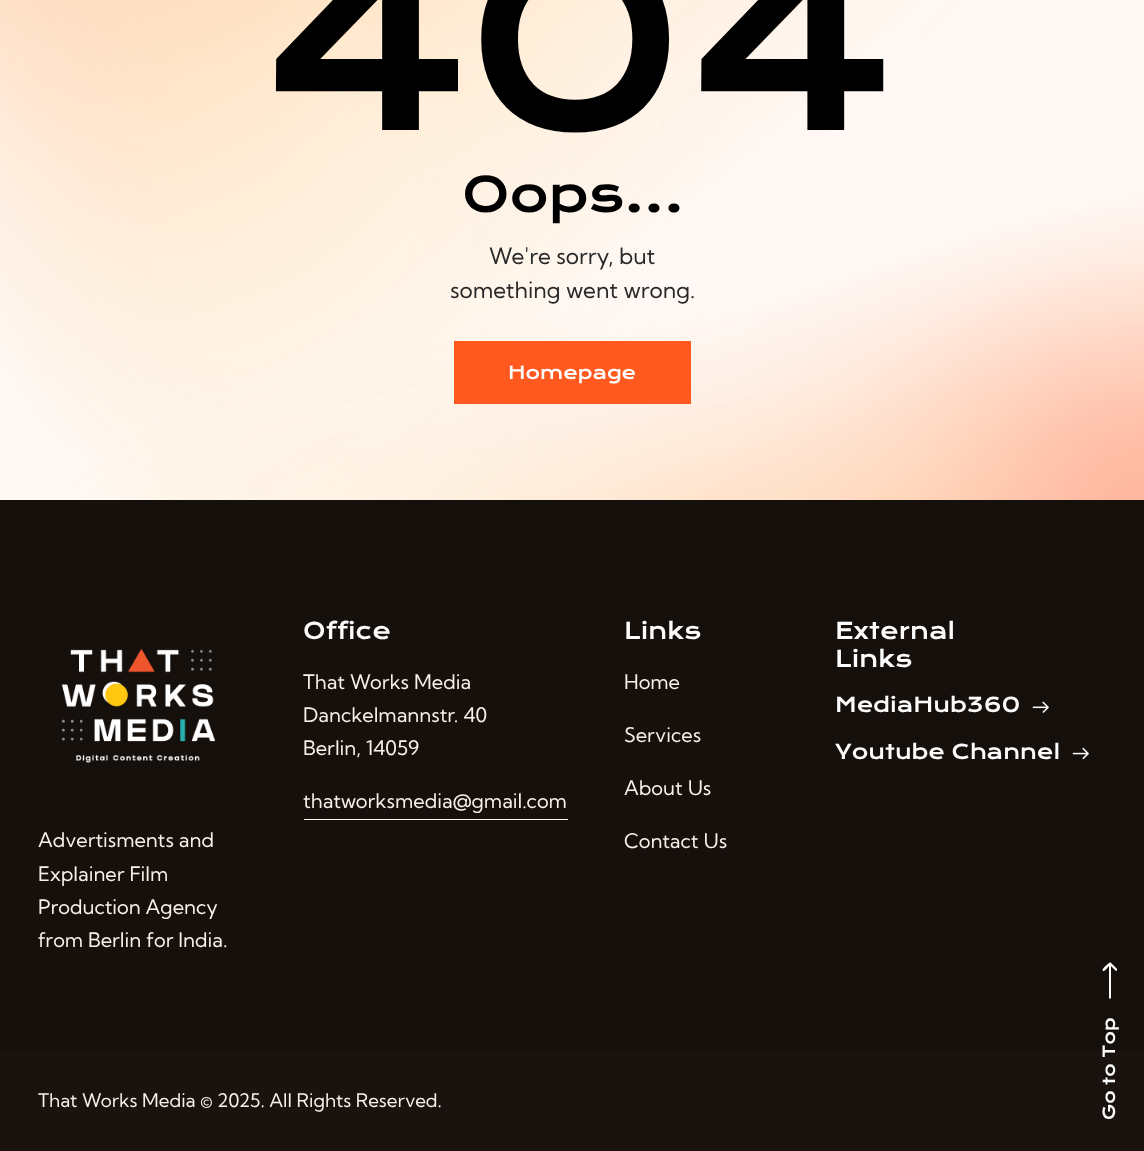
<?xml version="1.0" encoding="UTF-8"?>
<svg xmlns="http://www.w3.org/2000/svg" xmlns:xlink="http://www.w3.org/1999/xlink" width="1144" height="1151">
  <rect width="100%" height="100%" fill="#fff9f6" />
  <image x="0" y="0" width="1144" height="500" xlink:href="image1.png" />
  <rect x="454" y="341" width="237" height="63" fill="#ff591f" />
  <rect y="500" width="1144" height="550" fill="#16100d" />
  <rect x="304" y="819" width="264" height="1" fill="#f7f0eb" />
  <image x="1032" y="701" width="17" height="12" xlink:href="image2.png" />
  <image x="1072" y="747" width="17" height="13" xlink:href="image3.png" />
  <image x="61" y="648" width="154" height="115" xlink:href="image4.png" />
  <rect y="1050" width="1144" height="101" fill="#19120f" />
  <path d="M 1109 963 c 0.5 -0.5 1 -0.5 1.5 -0.5 c 1 0.5 6 6 6.5 6.5 v 1.5 l -1 0.5 l -5 -5 v 32.5 h -2 v -32.5 c -1.5 1.5 -3 4 -5 5 h -1 c -2 -2 4.5 -6.5 6 -8 z" fill="#fcfcfc" />
  <text x="254" y="130" style="font-family: Krona One; font-size: 237.5px; letter-spacing: -5px; fill: #000000">404</text>
  <text x="462" y="212" style="font-family: Krona One; font-size: 47.5px; fill: #000000">Oops...</text>
  <text x="489" y="264" style="font-family: Kumbh Sans; font-size: 22.5px; fill: #292929">We're sorry, but</text>
  <text x="450" y="298" style="font-family: Kumbh Sans; font-size: 22.5px; fill: #292929">something went wrong.</text>
  <text x="508" y="379" style="font-family: Krona One; font-size: 17.5px; fill: #fcfcfc">Homepage</text>
  <text x="303" y="639" style="font-family: Krona One; font-size: 22.5px; fill: #fcfcfc">Office</text>
  <text x="303" y="689" style="font-family: Kumbh Sans; font-size: 20px; fill: #f7f0eb">That Works Media</text>
  <text x="303" y="722" style="font-family: Kumbh Sans; font-size: 20px; fill: #f7f0eb">Danckelmannstr. 40</text>
  <text x="303" y="755" style="font-family: Kumbh Sans; font-size: 20px; fill: #f7f0eb">Berlin, 14059</text>
  <text x="303" y="808" style="font-family: Kumbh Sans; font-size: 20px; fill: #f7f0eb">thatworksmedia@gmail.com</text>
  <text x="624" y="639" style="font-family: Krona One; font-size: 22.5px; fill: #fcfcfc">Links</text>
  <text x="624" y="689" style="font-family: Kumbh Sans; font-size: 20px; fill: #f7f0eb">Home</text>
  <text x="624" y="742" style="font-family: Kumbh Sans; font-size: 20px; fill: #f7f0eb">Services</text>
  <text x="624" y="795" style="font-family: Kumbh Sans; font-size: 20px; fill: #f7f0eb">About Us</text>
  <text x="624" y="848" style="font-family: Kumbh Sans; font-size: 20px; fill: #f7f0eb">Contact Us</text>
  <text x="835" y="639" style="font-family: Krona One; font-size: 22.5px; fill: #fcfcfc">External</text>
  <text x="835" y="667" style="font-family: Krona One; font-size: 22.5px; fill: #fcfcfc">Links</text>
  <text x="835" y="712" style="font-family: Krona One; font-size: 20px; fill: #fcfcfc">MediaHub360</text>
  <text x="835" y="759" style="font-family: Krona One; font-size: 20px; fill: #fcfcfc">Youtube Channel</text>
  <text x="38" y="847" style="font-family: Kumbh Sans; font-size: 20px; fill: #f7f0eb">Advertisments and</text>
  <text x="38" y="881" style="font-family: Kumbh Sans; font-size: 20px; fill: #f7f0eb">Explainer Film</text>
  <text x="38" y="914" style="font-family: Kumbh Sans; font-size: 20px; fill: #f7f0eb">Production Agency</text>
  <text x="38" y="947" style="font-family: Kumbh Sans; font-size: 20px; fill: #f7f0eb">from Berlin for India.</text>
  <text x="38" y="1107" style="font-family: Kumbh Sans; font-size: 18.75px; fill: #f7f0eb">That Works Media © 2025. All Rights Reserved.</text>
  <text x="1115" y="1120" transform="rotate(-90 1115 1120)" style="font-family: Krona One; font-size: 16.25px; fill: #fcfcfc">Go to Top</text>
</svg>
